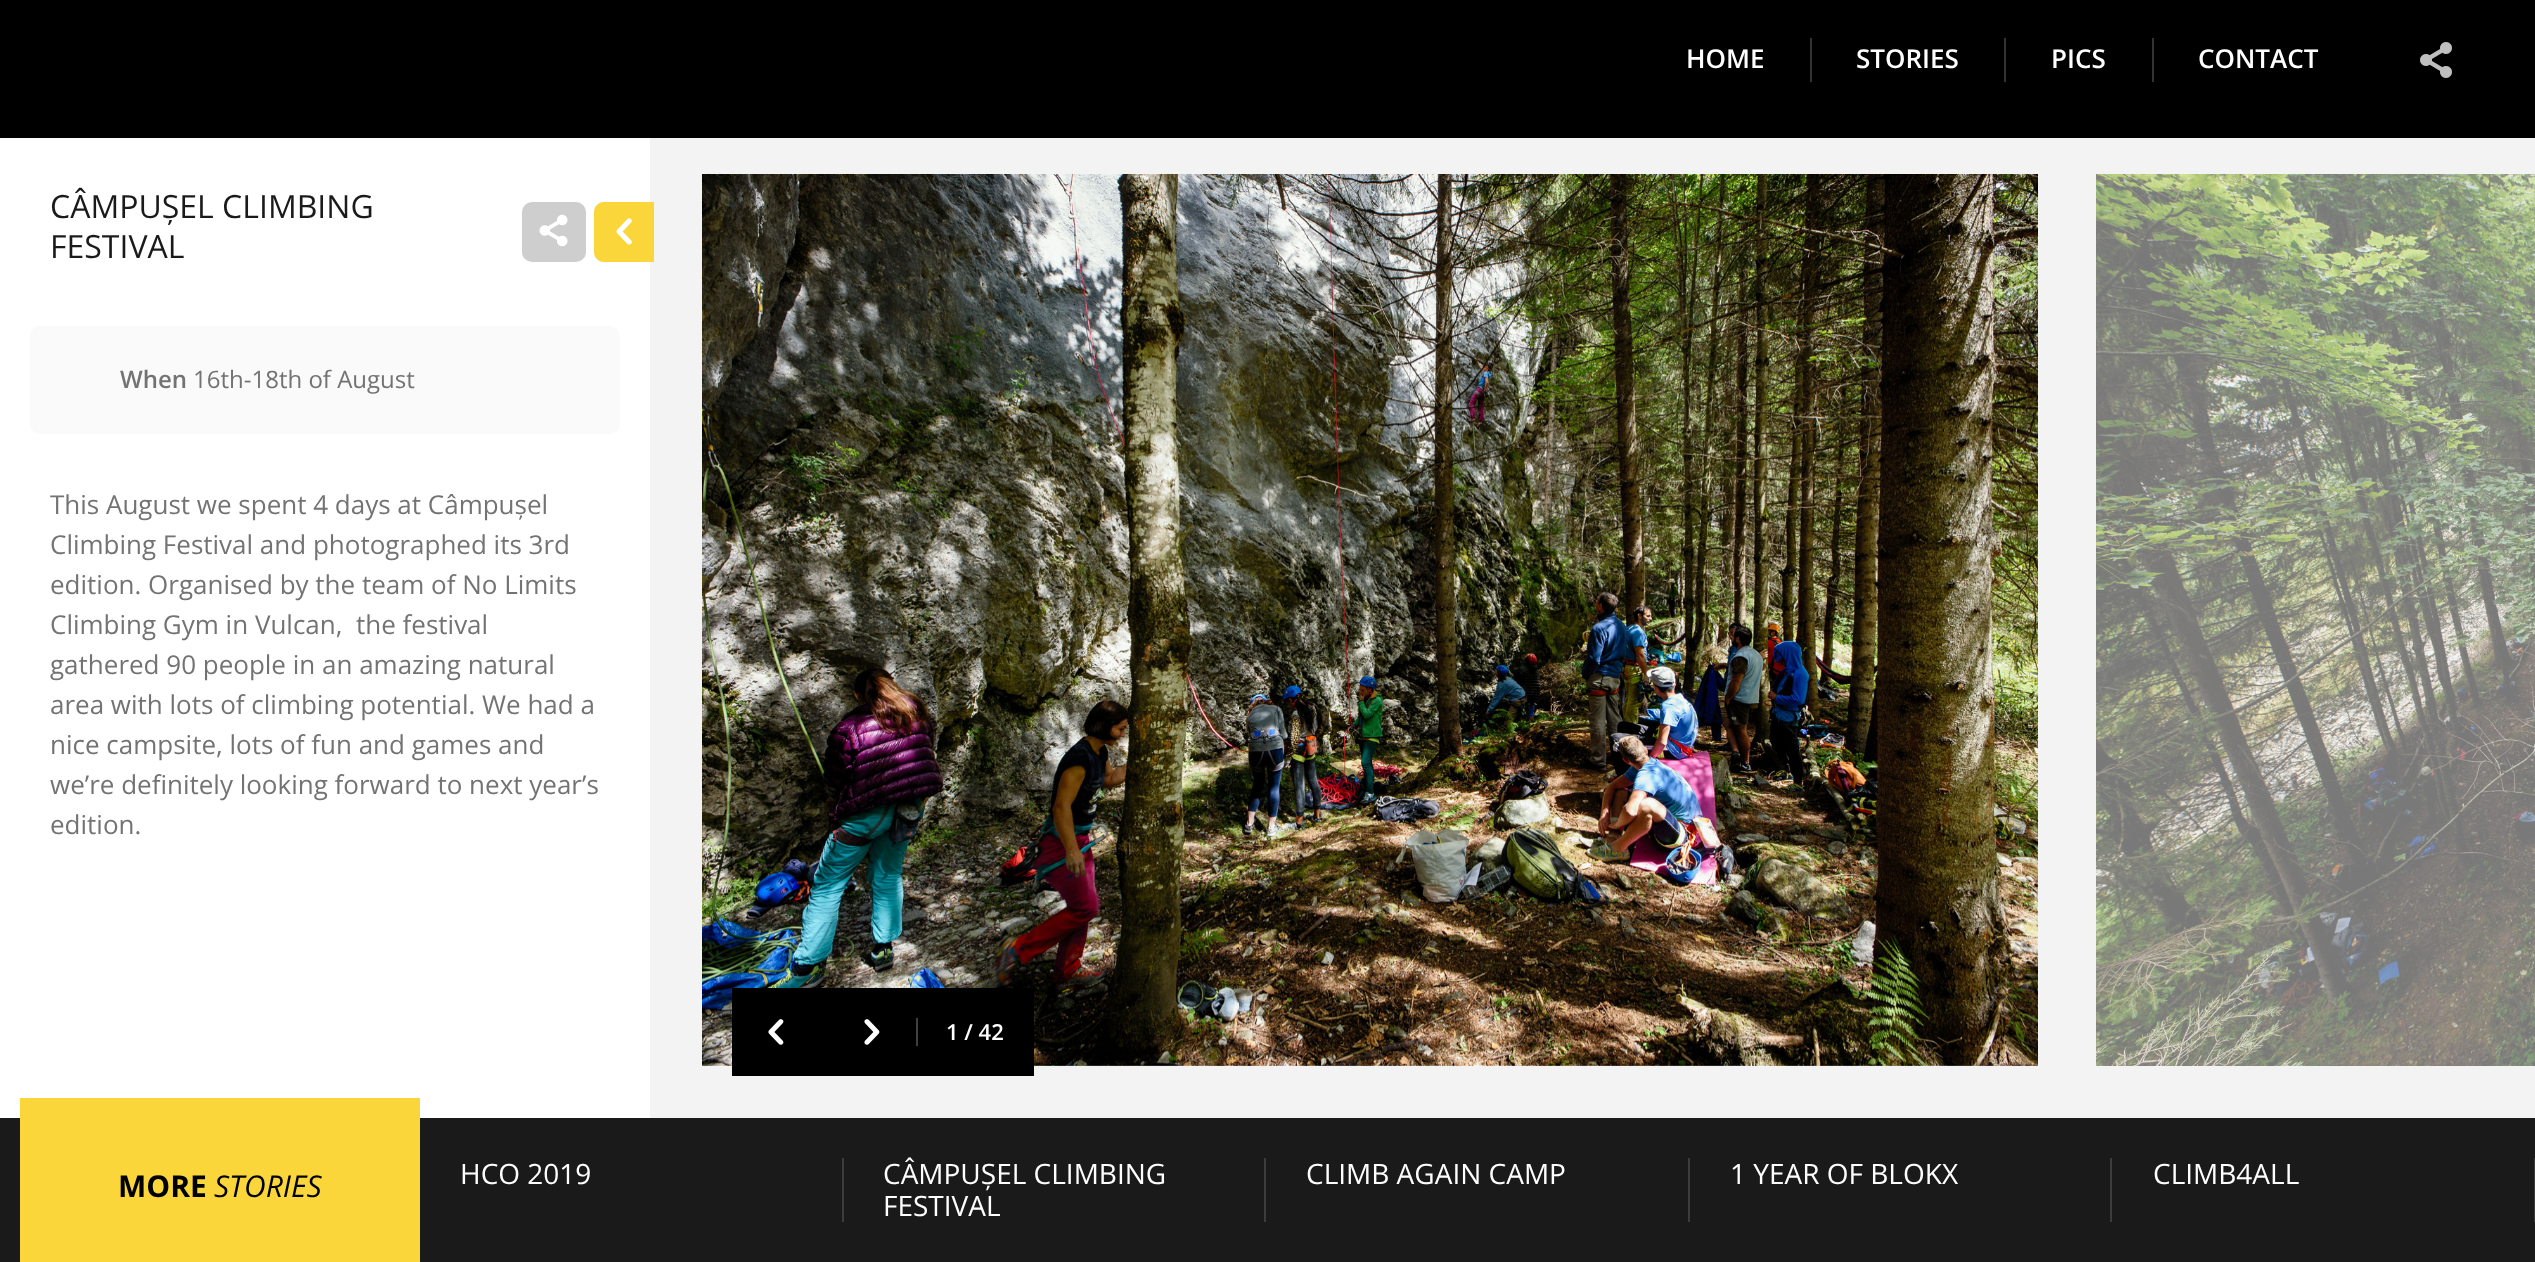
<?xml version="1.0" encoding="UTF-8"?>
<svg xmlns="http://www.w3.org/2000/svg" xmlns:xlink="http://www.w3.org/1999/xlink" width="2535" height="1262">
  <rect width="100%" height="100%" fill="#f3f3f3" />
  <rect width="2535" height="138" fill="#000000" />
  <rect x="1810" y="38" width="2" height="44" fill="#333333" />
  <rect x="2004" y="38" width="2" height="44" fill="#333333" />
  <rect x="2152" y="38" width="2" height="44" fill="#333333" />
  <image x="2420" y="42" width="32" height="36" xlink:href="image1.png" />
  <rect y="138" width="650" height="980" fill="#ffffff" />
  <rect x="522" y="202" width="64" height="60" rx="10" fill="#cecece" />
  <image x="539" y="214" width="29" height="33" xlink:href="image2.png" />
  <path d="M 604 202 h 50 v 60 h -50 c -5.5 0 -10 -4.5 -10 -10 v -40 c 0 -5.5 4.5 -10 10 -10 z" fill="#fbd63a" />
  <image x="616" y="218" width="16" height="27" xlink:href="image3.png" />
  <rect x="30" y="326" width="590" height="108" rx="10" fill="#fafafa" />
  <image x="702" y="174" width="1336" height="892" xlink:href="image4.png" />
  <image x="2096" y="174" width="439" height="892" xlink:href="image5.png" />
  <rect x="732" y="988" width="302" height="88" fill="#000000" />
  <image x="768" y="1019" width="16" height="26" xlink:href="image6.png" />
  <image x="864" y="1019" width="16" height="26" xlink:href="image7.png" />
  <rect x="916" y="1018" width="2" height="28" fill="#404040" />
  <rect y="1118" width="2535" height="144" fill="#1a1a1a" />
  <rect x="20" y="1098" width="400" height="164" fill="#fbd63a" />
  <rect x="842" y="1158" width="2" height="64" fill="#3c3c3c" />
  <rect x="1264" y="1158" width="2" height="64" fill="#3c3c3c" />
  <rect x="1688" y="1158" width="2" height="64" fill="#3c3c3c" />
  <rect x="2110" y="1158" width="2" height="64" fill="#3c3c3c" />
  <rect x="2534" y="1158" width="1" height="64" fill="#3c3c3c" />
  <text x="1686" y="68" style="font-family: Open Sans; font-size: 26px; font-weight: 600; fill: #ffffff">HOME</text>
  <text x="1856" y="68" style="font-family: Open Sans; font-size: 26px; font-weight: 600; fill: #ffffff">STORIES</text>
  <text x="2051" y="68" style="font-family: Open Sans; font-size: 26px; font-weight: 600; fill: #ffffff">PICS</text>
  <text x="2198" y="68" style="font-family: Open Sans; font-size: 26px; font-weight: 600; fill: #ffffff">CONTACT</text>
  <text x="50" y="218" style="font-family: Open Sans; font-size: 32px; fill: #1a1a1a">CÂMPUȘEL CLIMBING</text>
  <text x="50" y="258" style="font-family: Open Sans; font-size: 32px; fill: #1a1a1a">FESTIVAL</text>
  <text x="120" y="388" style="font-family: Open Sans; font-size: 24px; font-weight: 600; fill: #737373">When</text>
  <text x="193" y="388" style="font-family: Open Sans; font-size: 24px; fill: #737373">16th-18th of August</text>
  <text x="50" y="514" style="font-family: Open Sans; font-size: 26px; fill: #737373">This August we spent 4 days at Câmpușel</text>
  <text x="50" y="554" style="font-family: Open Sans; font-size: 26px; fill: #737373">Climbing Festival and photographed its 3rd</text>
  <text x="50" y="594" style="font-family: Open Sans; font-size: 26px; fill: #737373">edition. Organised by the team of No Limits</text>
  <text x="50" y="634" style="font-family: Open Sans; font-size: 26px; fill: #737373">Climbing Gym in Vulcan,</text>
  <text x="356" y="634" style="font-family: Open Sans; font-size: 26px; fill: #737373">the festival</text>
  <text x="50" y="674" style="font-family: Open Sans; font-size: 26px; fill: #737373">gathered 90 people in an amazing natural</text>
  <text x="50" y="714" style="font-family: Open Sans; font-size: 26px; fill: #737373">area with lots of climbing potential. We had a</text>
  <text x="50" y="754" style="font-family: Open Sans; font-size: 26px; fill: #737373">nice campsite, lots of fun and games and</text>
  <text x="50" y="794" style="font-family: Open Sans; font-size: 26px; fill: #737373">we’re definitely looking forward to next year’s</text>
  <text x="50" y="834" style="font-family: Open Sans; font-size: 26px; fill: #737373">edition.</text>
  <text x="946" y="1040" style="font-family: Open Sans; font-size: 22px; font-weight: 600; fill: #ffffff">1 / 42</text>
  <text x="118" y="1197" style="font-family: Open Sans; font-size: 30px; font-weight: bold; fill: #000000">MORE</text>
  <text x="214" y="1197" style="font-family: Open Sans; font-size: 30px; font-style: italic; fill: #000000">STORIES</text>
  <text x="460" y="1184" style="font-family: Open Sans; font-size: 28px; fill: #ffffff">HCO 2019</text>
  <text x="883" y="1184" style="font-family: Open Sans; font-size: 28px; fill: #ffffff">CÂMPUȘEL CLIMBING</text>
  <text x="883" y="1216" style="font-family: Open Sans; font-size: 28px; fill: #ffffff">FESTIVAL</text>
  <text x="1306" y="1184" style="font-family: Open Sans; font-size: 28px; fill: #ffffff">CLIMB AGAIN CAMP</text>
  <text x="1730" y="1184" style="font-family: Open Sans; font-size: 28px; fill: #ffffff">1 YEAR OF BLOKX</text>
  <text x="2153" y="1184" style="font-family: Open Sans; font-size: 28px; fill: #ffffff">CLIMB4ALL</text>
</svg>
